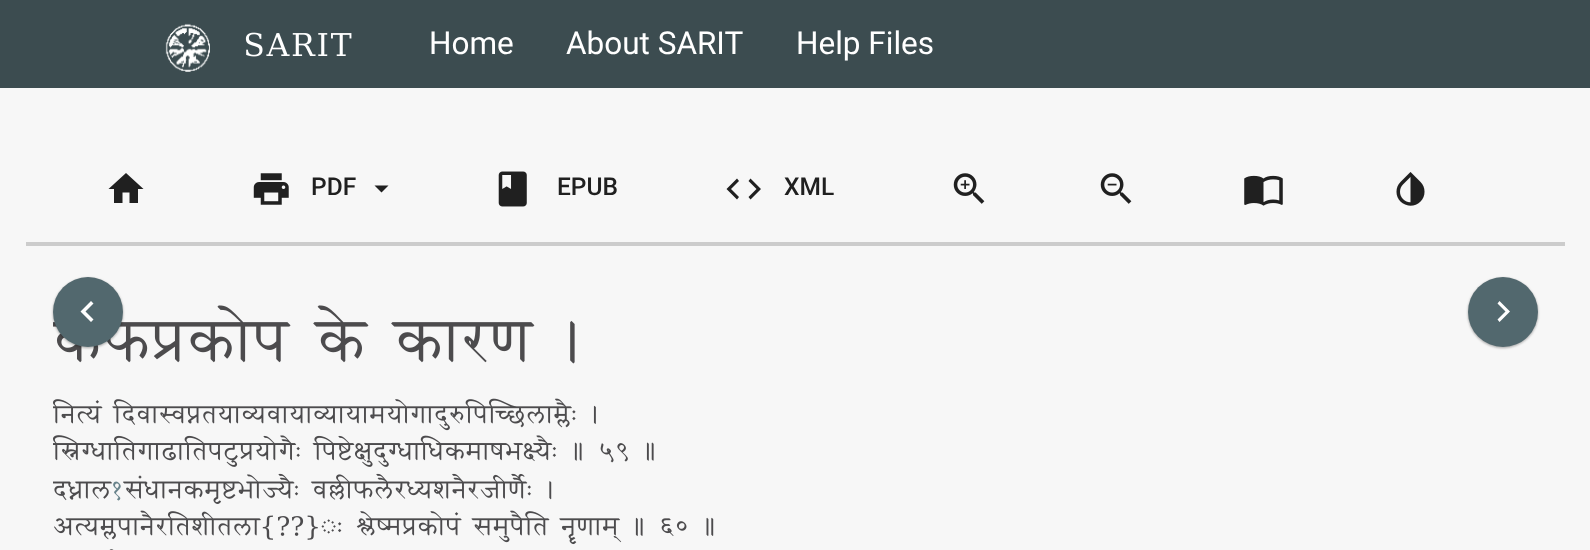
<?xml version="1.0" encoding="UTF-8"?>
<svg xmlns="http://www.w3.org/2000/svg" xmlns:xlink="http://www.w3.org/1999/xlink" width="1590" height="550">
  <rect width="100%" height="100%" fill="#f7f7f7" />
  <rect width="1590" height="88" fill="#3c4c50" />
  <image x="165" y="23" width="45" height="49" xlink:href="image1.png" />
  <image x="245" y="32" width="107" height="25" xlink:href="image2.png" />
  <path d="M 122.5 203 h -8.5 v -14 h -5.5 l 17.5 -16 l 17.5 16 h -5.5 v 14 h -8.5 v -10.5 h -7 z" fill="#202020" />
  <image x="253" y="173" width="36" height="32" xlink:href="image3.png" />
  <path d="M 374.5 185.5 h 14 l -7 7 z" fill="#202020" />
  <image x="498" y="171" width="29" height="36" xlink:href="image4.png" />
  <path d="M 748.5 197 l 8 -8 l -8 -8 l 2 -2.5 l 10.5 10.5 l -10.5 10.5 z m -9.5 0 l -2 2.5 l -10.5 -10.5 l 10.5 -10.5 l 2 2.5 l -8 8 z" fill="#202020" />
  <image x="953" y="173" width="32" height="31" xlink:href="image5.png" />
  <image x="1100" y="173" width="32" height="31" xlink:href="image6.png" />
  <image x="1244" y="175" width="39" height="31" xlink:href="image7.png" />
  <image x="1396" y="172" width="29" height="34" xlink:href="image8.png" />
  <rect x="26" y="242" width="1539" height="4" fill="#cccccc" />
  <image x="53" y="305" width="522" height="59" xlink:href="image9.png" />
  <rect x="53" y="278" width="70" height="70" rx="35" fill="#000000" fill-opacity="0.24" filter="blur(1px)" />
  <rect x="53" y="278" width="70" height="70" rx="35" fill="#000000" fill-opacity="0.12" filter="blur(1.5px)" />
  <circle cx="88" cy="312" r="35" fill="#52686e" />
  <path d="M 93.5 303.5 l -8 8 l 8 8 l -2.5 2.5 l -10.5 -10.5 l 10.5 -10.5 z" fill="#ffffff" />
  <rect x="1468" y="278" width="70" height="70" rx="35" fill="#000000" fill-opacity="0.24" filter="blur(1px)" />
  <rect x="1468" y="278" width="70" height="70" rx="35" fill="#000000" fill-opacity="0.12" filter="blur(1.5px)" />
  <circle cx="1503" cy="312" r="35" fill="#52686e" />
  <path d="M 1499.5 301 l 10.5 10.5 l -10.5 10.5 l -2 -2.5 l 8 -8 l -8 -8 z" fill="#ffffff" />
  <image x="53" y="398" width="543" height="33" xlink:href="image10.png" />
  <image x="53" y="435" width="601" height="32" xlink:href="image11.png" />
  <image x="53" y="481" width="59" height="20" xlink:href="image12.png" />
  <image x="113" y="481" width="8" height="20" xlink:href="image13.png" />
  <image x="123" y="473" width="429" height="31" xlink:href="image14.png" />
  <image x="54" y="510" width="660" height="35" xlink:href="image15.png" />
  <image x="109" y="549" width="5" height="1" xlink:href="image16.png" />
  <text x="429" y="54" style="font-family: Roboto; font-size: 31.5px; fill: #ffffff">Home</text>
  <text x="566" y="54" style="font-family: Roboto; font-size: 31.5px; fill: #ffffff">About SARIT</text>
  <text x="796" y="54" style="font-family: Roboto; font-size: 31.5px; fill: #ffffff">Help Files</text>
  <text x="311" y="195" style="font-family: Roboto; font-size: 24.5px; font-weight: 500; fill: #202020">PDF</text>
  <text x="557" y="195" style="font-family: Roboto; font-size: 24.5px; font-weight: 500; fill: #202020">EPUB</text>
  <text x="784" y="195" style="font-family: Roboto; font-size: 24.5px; font-weight: 500; fill: #202020">XML</text>
</svg>
